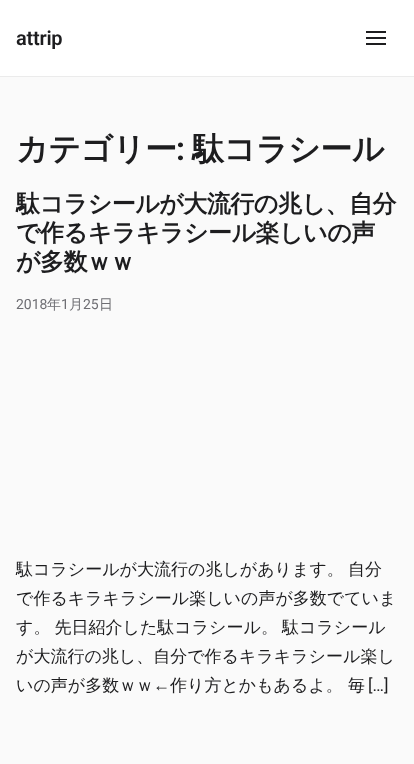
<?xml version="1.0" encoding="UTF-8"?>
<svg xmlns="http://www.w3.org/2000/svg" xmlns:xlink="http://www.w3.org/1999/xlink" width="414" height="764">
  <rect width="100%" height="100%" fill="#fafafa" />
  <rect width="414" height="76" fill="#ffffff" />
  <rect y="76" width="414" height="1" fill="#ebebeb" />
  <rect x="366" y="37" width="20" height="2" fill="#1d1d1f" />
  <rect x="366" y="31" width="20" height="2" fill="#1d1d1f" />
  <rect x="366" y="43" width="20" height="2" fill="#1d1d1f" />
  <text x="16" y="45" style="font-family: Roboto; font-size: 20px; font-weight: 600; letter-spacing: -0.25px; fill: #1d1d1f">attrip</text>
  <text x="16" y="160" style="font-family: WenQuanYi Zen Hei; font-size: 32px; font-weight: bold; letter-spacing: -0.5px; fill: #1d1d1f">カテゴリー</text>
  <text x="176" y="160" style="font-family: Roboto; font-size: 32px; font-weight: bold; letter-spacing: -0.5px; fill: #1d1d1f">:</text>
  <text x="192" y="160" style="font-family: WenQuanYi Zen Hei; font-size: 32px; font-weight: bold; letter-spacing: -0.5px; fill: #1d1d1f">駄コラシール</text>
  <text x="16" y="212" style="font-family: WenQuanYi Zen Hei; font-size: 24px; font-weight: bold; letter-spacing: -0.5px; fill: #1d1d1f">駄コラシールが大流行の兆し、自分</text>
  <text x="16" y="241" style="font-family: WenQuanYi Zen Hei; font-size: 24px; font-weight: bold; letter-spacing: -0.5px; fill: #1d1d1f">で作るキラキラシール楽しいの声</text>
  <text x="16" y="270" style="font-family: WenQuanYi Zen Hei; font-size: 24px; font-weight: bold; letter-spacing: -0.5px; fill: #1d1d1f">が多数ｗｗ</text>
  <text x="16" y="309" style="font-family: Roboto; font-size: 14px; fill: #6e6e73">2018</text>
  <text x="47" y="309" style="font-family: WenQuanYi Zen Hei; font-size: 14px; font-weight: 500; fill: #6e6e73">年</text>
  <text x="61" y="309" style="font-family: Roboto; font-size: 14px; fill: #6e6e73">1</text>
  <text x="69" y="309" style="font-family: WenQuanYi Zen Hei; font-size: 14px; font-weight: 500; fill: #6e6e73">月</text>
  <text x="83" y="309" style="font-family: Roboto; font-size: 14px; fill: #6e6e73">25</text>
  <text x="99" y="309" style="font-family: WenQuanYi Zen Hei; font-size: 14px; font-weight: 500; fill: #6e6e73">日</text>
  <text x="16" y="575" word-spacing="-1" style="font-family: WenQuanYi Zen Hei; font-size: 17px; font-weight: 500; fill: #1d1d1f">駄コラシールが大流行の兆しがあります。 自分</text>
  <text x="16" y="604" style="font-family: WenQuanYi Zen Hei; font-size: 17px; font-weight: 500; fill: #1d1d1f">で作るキラキラシール楽しいの声が多数でていま</text>
  <text x="16" y="633" word-spacing="-1" style="font-family: WenQuanYi Zen Hei; font-size: 17px; font-weight: 500; fill: #1d1d1f">す。 先日紹介した駄コラシール。 駄コラシール</text>
  <text x="16" y="662" style="font-family: WenQuanYi Zen Hei; font-size: 17px; font-weight: 500; fill: #1d1d1f">が大流行の兆し、自分で作るキラキラシール楽し</text>
  <text x="16" y="691" style="font-family: WenQuanYi Zen Hei; font-size: 17px; font-weight: 500; fill: #1d1d1f">いの声が多数ｗｗ</text>
  <text x="153" y="691" style="font-family: Liberation Sans; font-size: 17px; fill: #1d1d1f">←</text>
  <text x="170" y="691" style="font-family: WenQuanYi Zen Hei; font-size: 17px; font-weight: 500; fill: #1d1d1f">作り方とかもあるよ。 毎</text>
  <text x="368" y="691" style="font-family: Roboto; font-size: 17px; fill: #1d1d1f">[…]</text>
</svg>
